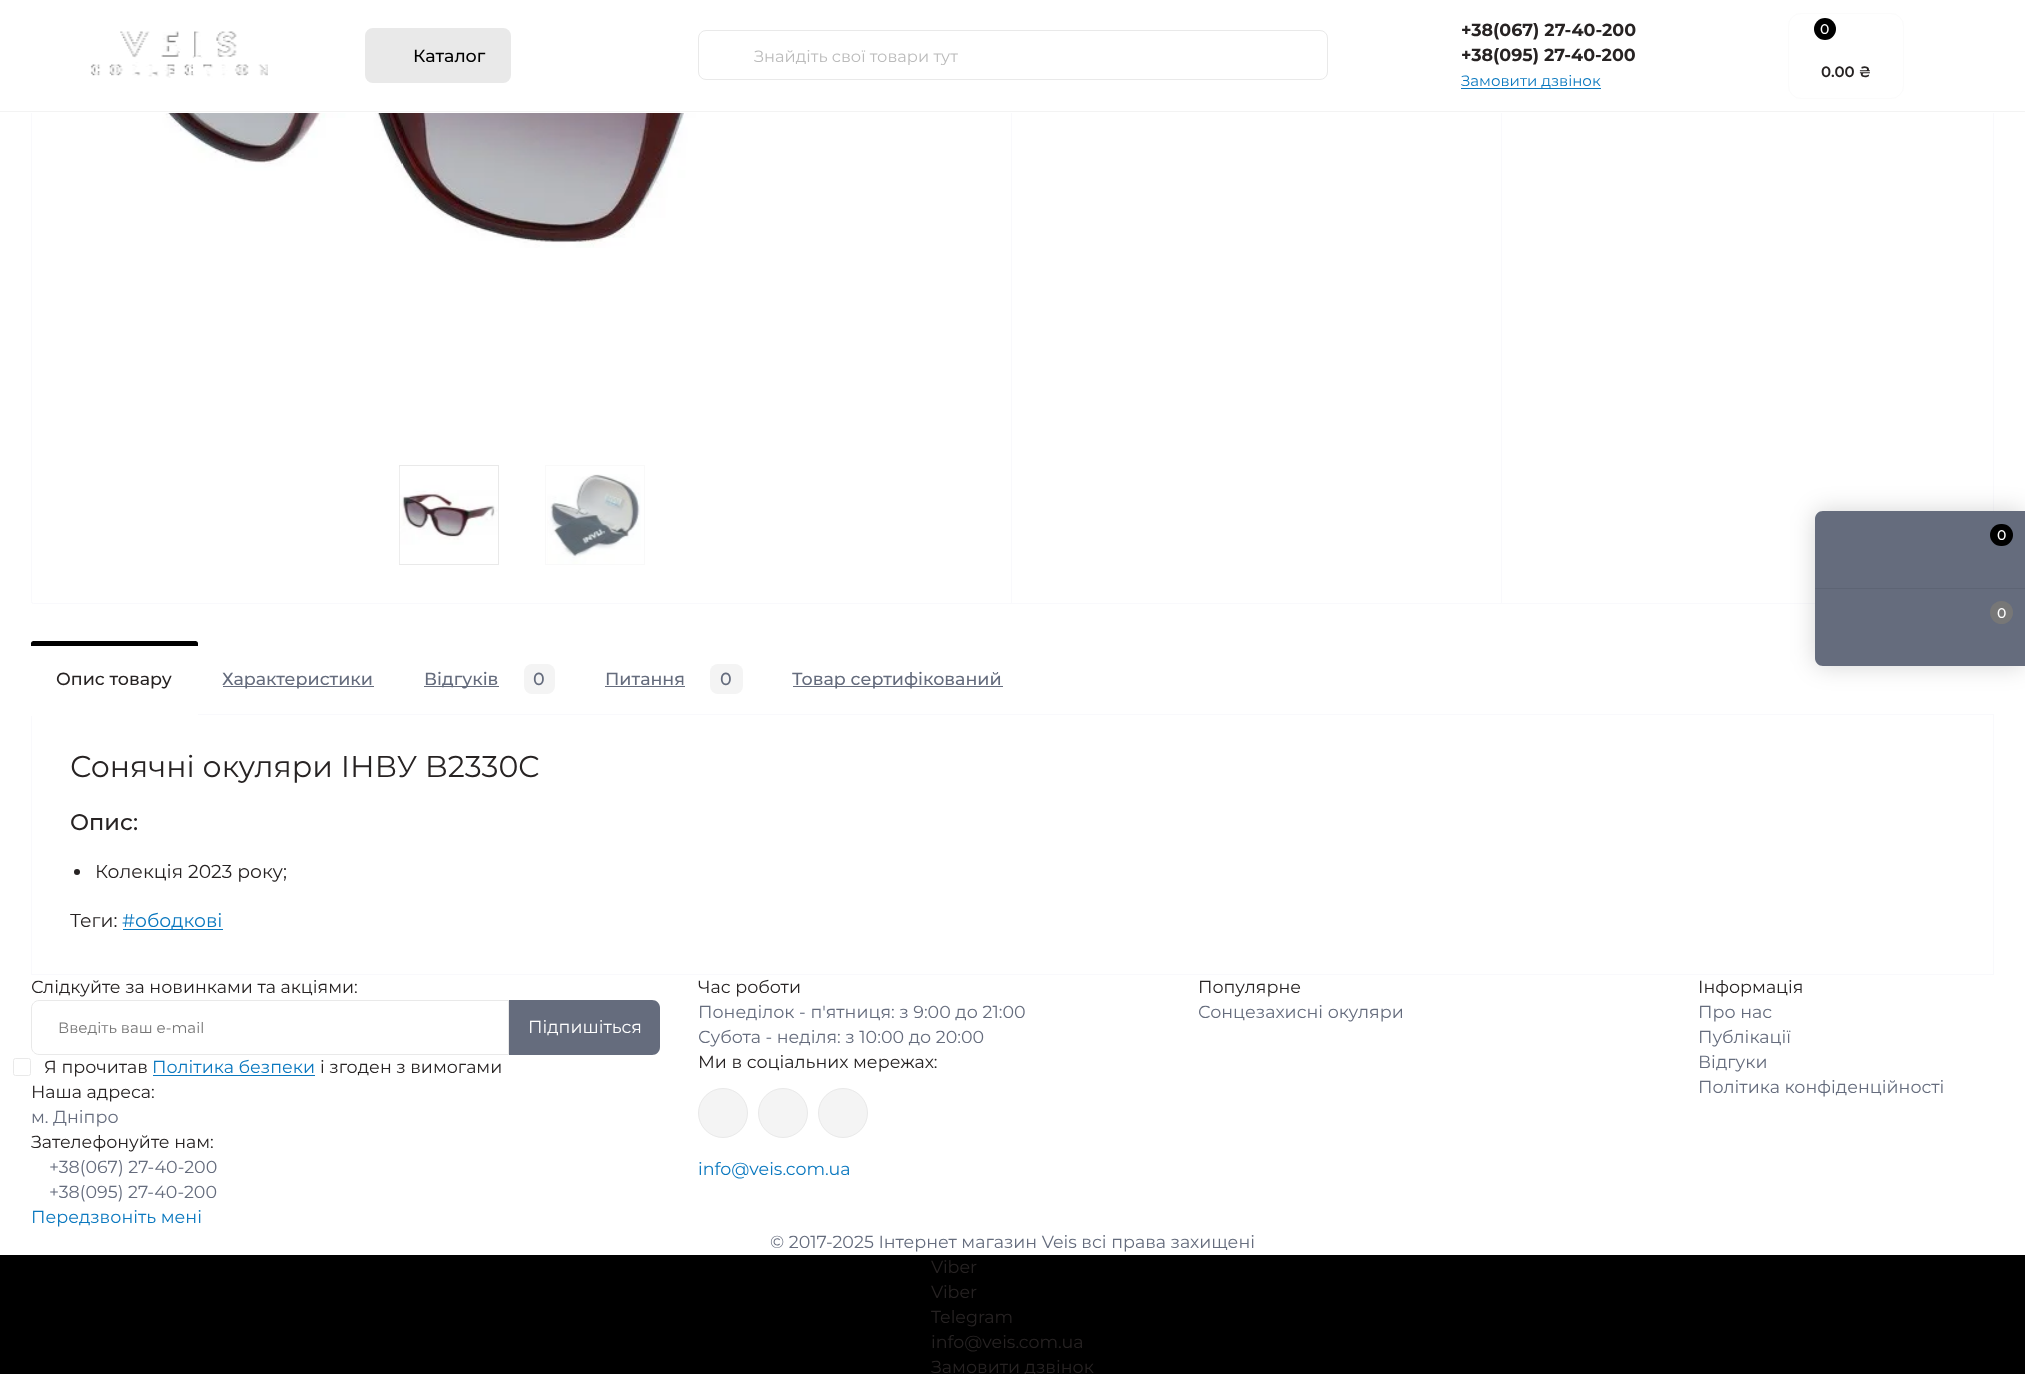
<?xml version="1.0" encoding="UTF-8"?>
<svg xmlns="http://www.w3.org/2000/svg" xmlns:xlink="http://www.w3.org/1999/xlink" width="2025" height="1374">
  <defs>
    <clipPath id="clip1"><rect x="754" y="45" width="554" height="20" /></clipPath>
  </defs>
  <rect width="100%" height="100%" fill="#ffffff" />
  <rect x="31.5" y="-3.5" width="1962" height="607" rx="2" fill="none" stroke="#f9f9fc" />
  <rect x="31" width="1963" height="113" fill="#ffffff" />
  <rect y="111" width="2025" height="1" fill="#f3f3f3" />
  <image x="90" y="31" width="178" height="47" xlink:href="image1.png" />
  <rect x="365" y="28" width="146" height="55" rx="8" fill="#e9e9e9" />
  <rect x="698.5" y="30.5" width="629" height="49" rx="7.5" fill="none" stroke="#e9e9e9" />
  <rect x="1461" y="88" width="140" height="1" fill="#0a78bf" />
  <rect x="1788.5" y="13.5" width="115" height="85" rx="12.5" fill="none" stroke="#fbfbfb" />
  <circle cx="1825" cy="29" r="11" fill="#000000" />
  <rect x="1815" y="511" width="210" height="155" rx="8" fill="#000000" fill-opacity="0.17" filter="blur(12.5px)" />
  <path d="M 1823 511 h 202 v 155 h -202 c -4.5 0 -8 -3.5 -8 -8 v -139 c 0 -4.5 3.5 -8 8 -8 z" fill="#656c7d" />
  <rect x="1990" y="524" width="23" height="22" rx="11" fill="#000000" />
  <rect x="1815" y="588" width="210" height="1" fill="#5d6474" />
  <circle cx="2001.5" cy="612.5" r="11.5" fill="#777777" />
  <rect x="1011" y="113" width="1" height="490" fill="#f9f9fc" />
  <image x="125" y="113" width="810" height="135" xlink:href="image2.png" />
  <rect x="399.5" y="465.5" width="99" height="99" fill="none" stroke="#e9e9e9" />
  <image x="399" y="467" width="99" height="97" xlink:href="image3.png" />
  <rect x="545.5" y="465.5" width="99" height="99" fill="none" stroke="#f9f9f9" />
  <image x="547" y="474" width="94" height="90" xlink:href="image4.png" />
  <rect x="1501" y="113" width="1" height="490" fill="#f9f9fc" />
  <rect x="31.5" y="714.5" width="1962" height="260" fill="none" stroke="#f9f9fc" />
  <path d="M 33.5 641 h 162 c 1.5 0 2.5 1 2.5 2.5 v 72.5 h -167 v -72.5 c 0 -1.5 1 -2.5 2.5 -2.5 z" fill="#ffffff" />
  <path d="M 33.5 641 h 162 c 1.5 0 2.5 1 2.5 2.5 v 2.5 h -167 v -2.5 c 0 -1.5 1 -2.5 2.5 -2.5 z" fill="#000000" />
  <rect x="223" y="686" width="151" height="1" fill="#656c7d" />
  <rect x="424" y="686" width="75" height="1" fill="#656c7d" />
  <rect x="524" y="664" width="31" height="30" rx="8" fill="#f4f4f4" />
  <rect x="605" y="686" width="80" height="1" fill="#656c7d" />
  <rect x="710" y="664" width="33" height="30" rx="8" fill="#f4f4f4" />
  <rect x="793" y="686" width="210" height="1" fill="#656c7d" />
  <circle cx="77" cy="872" r="3" fill="#272323" />
  <rect x="123" y="929" width="100" height="1" fill="#0a78bf" />
  <path d="M 39 1000.5 h 469.5 v 54 h -469.5 c -4 0 -7.5 -3.5 -7.5 -7.5 v -39 c 0 -4 3.5 -7.5 7.5 -7.5 z" fill="none" stroke="#e9e9e9" />
  <path d="M 509 1000 h 143 c 4.5 0 8 3.5 8 8 v 39 c 0 4.5 -3.5 8 -8 8 h -143 z" fill="#656c7d" />
  <rect x="13.5" y="1058.5" width="17" height="17" rx="2" fill="none" stroke="#e9e9e9" />
  <rect x="153" y="1075" width="162" height="1" fill="#0a78bf" />
  <circle cx="723" cy="1113" r="24.5" fill="#f4f4f4" stroke="#e9e9e9" />
  <circle cx="783" cy="1113" r="24.5" fill="#f4f4f4" stroke="#e9e9e9" />
  <circle cx="843" cy="1113" r="24.5" fill="#f4f4f4" stroke="#e9e9e9" />
  <rect y="1255" width="2025" height="119" fill="#000000" />
  <text x="413" y="62" style="font-family: Montserrat; font-size: 17.5px; font-weight: 500; fill: #000000">Каталог</text>
  <g clip-path="url(#clip1)">
    <text x="754" y="62" style="font-family: Montserrat; font-size: 16.25px; fill: #bbbbbb">Знайдіть свої товари тут</text>
  </g>
  <text x="1461" y="36" style="font-family: Montserrat; font-size: 17.5px; font-weight: bold; fill: #272323">+38(067) 27-40-200</text>
  <text x="1461" y="61" style="font-family: Montserrat; font-size: 17.5px; font-weight: bold; fill: #272323">+38(095) 27-40-200</text>
  <text x="1461" y="86" style="font-family: Montserrat; font-size: 15px; fill: #0a78bf">Замовити дзвінок</text>
  <text x="1820" y="34" style="font-family: Montserrat; font-size: 14px; font-weight: 500; fill: #ffffff">0</text>
  <text x="1821" y="77" style="font-family: Montserrat; font-size: 15px; font-weight: 600; fill: #272323">0.00 ₴</text>
  <text x="1997" y="540" style="font-family: Montserrat; font-size: 14px; font-weight: 500; fill: #ffffff">0</text>
  <text x="1997" y="618" style="font-family: Montserrat; font-size: 14px; font-weight: 500; fill: #ffffff">0</text>
  <text x="56" y="685" style="font-family: Montserrat; font-size: 17.5px; font-weight: 500; fill: #272323">Опис товару</text>
  <text x="222" y="685" style="font-family: Montserrat; font-size: 17.5px; font-weight: 500; fill: #656c7d">Характеристики</text>
  <text x="424" y="685" style="font-family: Montserrat; font-size: 17.5px; font-weight: 500; fill: #656c7d">Відгуків</text>
  <text x="533" y="685" style="font-family: Montserrat; font-size: 17.5px; font-weight: 500; fill: #656c7d">0</text>
  <text x="605" y="685" style="font-family: Montserrat; font-size: 17.5px; font-weight: 500; fill: #656c7d">Питання</text>
  <text x="720" y="685" style="font-family: Montserrat; font-size: 17.5px; font-weight: 500; fill: #656c7d">0</text>
  <text x="792" y="685" style="font-family: Montserrat; font-size: 17.5px; font-weight: 500; fill: #656c7d">Товар сертифікований</text>
  <text x="70" y="777" style="font-family: Montserrat; font-size: 30px; fill: #272323">Сонячні окуляри ІНВУ B2330C</text>
  <text x="70" y="830" style="font-family: Montserrat; font-size: 22.5px; font-weight: 500; fill: #272323">Опис:</text>
  <text x="95" y="878" style="font-family: Montserrat; font-size: 18.75px; fill: #272323">Колекція 2023 року;</text>
  <text x="70" y="927" style="font-family: Montserrat; font-size: 18.75px; fill: #272323">Теги:</text>
  <text x="122" y="927" style="font-family: Montserrat; font-size: 18.75px; fill: #0a78bf">#ободкові</text>
  <text x="31" y="993" style="font-family: Montserrat; font-size: 17.5px; fill: #272323">Слідкуйте за новинками та акціями:</text>
  <text x="58" y="1033" style="font-family: Montserrat; font-size: 15px; fill: #757575">Введіть ваш e-mail</text>
  <text x="528" y="1033" style="font-family: Montserrat; font-size: 17.5px; fill: #ffffff">Підпишіться</text>
  <text x="44" y="1073" style="font-family: Montserrat; font-size: 17.5px; fill: #272323">Я прочитав</text>
  <text x="152" y="1073" style="font-family: Montserrat; font-size: 17.5px; fill: #0a78bf">Політика безпеки</text>
  <text x="320" y="1073" style="font-family: Montserrat; font-size: 17.5px; fill: #272323">і згоден з вимогами</text>
  <text x="31" y="1098" style="font-family: Montserrat; font-size: 17.5px; fill: #272323">Наша адреса:</text>
  <text x="31" y="1123" style="font-family: Montserrat; font-size: 17.5px; fill: #656c7d">м. Дніпро</text>
  <text x="31" y="1148" style="font-family: Montserrat; font-size: 17.5px; fill: #272323">Зателефонуйте нам:</text>
  <text x="49" y="1173" style="font-family: Montserrat; font-size: 17.5px; fill: #656c7d">+38(067) 27-40-200</text>
  <text x="49" y="1198" style="font-family: Montserrat; font-size: 17.5px; fill: #656c7d">+38(095) 27-40-200</text>
  <text x="31" y="1223" style="font-family: Montserrat; font-size: 17.5px; fill: #0a78bf">Передзвоніть мені</text>
  <text x="698" y="993" style="font-family: Montserrat; font-size: 17.5px; fill: #272323">Час роботи</text>
  <text x="698" y="1018" style="font-family: Montserrat; font-size: 17.5px; fill: #656c7d">Понеділок - п'ятниця: з 9:00 до 21:00</text>
  <text x="698" y="1043" style="font-family: Montserrat; font-size: 17.5px; fill: #656c7d">Субота - неділя: з 10:00 до 20:00</text>
  <text x="698" y="1068" style="font-family: Montserrat; font-size: 17.5px; fill: #272323">Ми в соціальних мережах:</text>
  <text x="698" y="1175" style="font-family: Montserrat; font-size: 17.5px; fill: #0a78bf">info@veis.com.ua</text>
  <text x="1198" y="993" style="font-family: Montserrat; font-size: 17.5px; fill: #272323">Популярне</text>
  <text x="1198" y="1018" style="font-family: Montserrat; font-size: 17.5px; fill: #656c7d">Сонцезахисні окуляри</text>
  <text x="1698" y="993" style="font-family: Montserrat; font-size: 17.5px; fill: #272323">Інформація</text>
  <text x="1698" y="1018" style="font-family: Montserrat; font-size: 17.5px; fill: #656c7d">Про нас</text>
  <text x="1698" y="1043" style="font-family: Montserrat; font-size: 17.5px; fill: #656c7d">Публікації</text>
  <text x="1698" y="1068" style="font-family: Montserrat; font-size: 17.5px; fill: #656c7d">Відгуки</text>
  <text x="1698" y="1093" style="font-family: Montserrat; font-size: 17.5px; fill: #656c7d">Політика конфіденційності</text>
  <text x="770" y="1248" style="font-family: Montserrat; font-size: 17.5px; fill: #656c7d">© 2017-2025 Інтернет магазин Veis всі права захищені</text>
  <text x="931" y="1273" style="font-family: Montserrat; font-size: 17.5px; fill: #272323">Viber</text>
  <text x="931" y="1298" style="font-family: Montserrat; font-size: 17.5px; fill: #272323">Viber</text>
  <text x="931" y="1323" style="font-family: Montserrat; font-size: 17.5px; fill: #272323">Telegram</text>
  <text x="931" y="1348" style="font-family: Montserrat; font-size: 17.5px; fill: #272323">info@veis.com.ua</text>
  <text x="931" y="1373" style="font-family: Montserrat; font-size: 17.5px; fill: #272323">Замовити дзвінок</text>
</svg>
